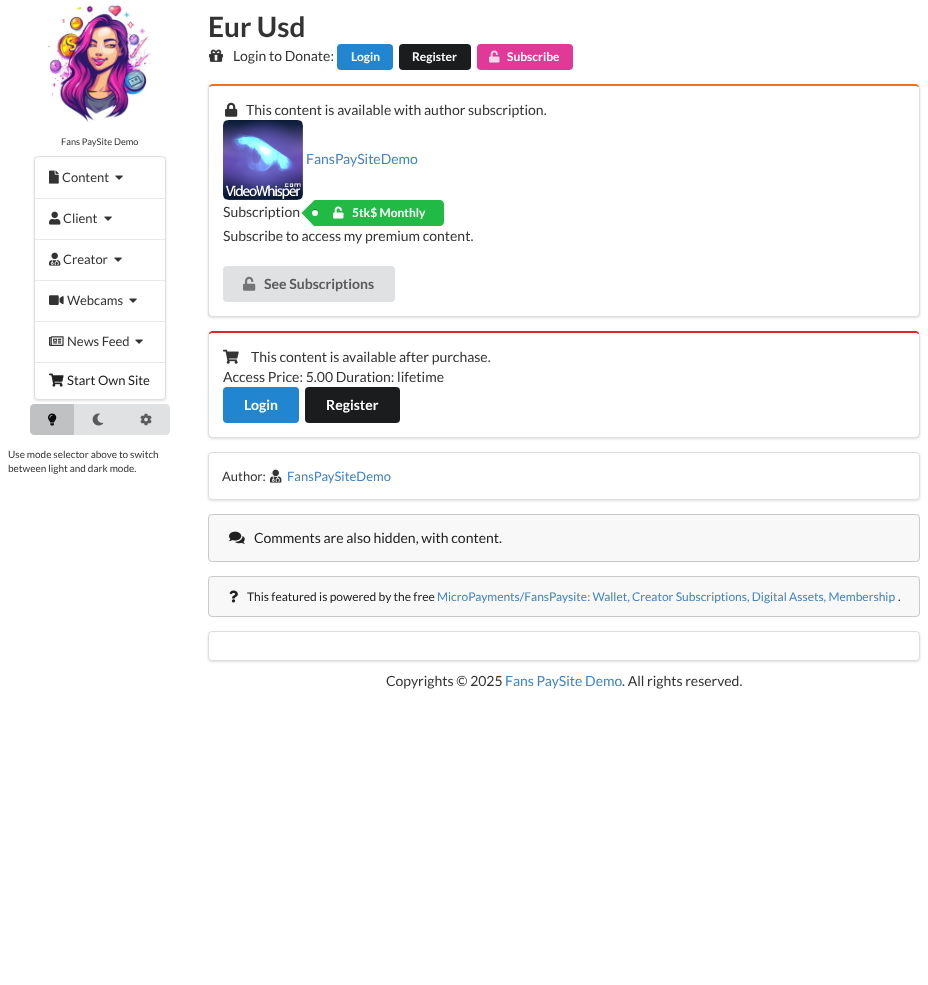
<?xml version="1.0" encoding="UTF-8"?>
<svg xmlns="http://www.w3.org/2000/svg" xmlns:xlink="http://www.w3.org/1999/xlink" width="928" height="985">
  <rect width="100%" height="100%" fill="#ffffff" />
  <image x="48" y="5" width="104" height="118" xlink:href="image1.png" />
  <rect x="34" y="157" width="132" height="244" rx="4" fill="#222426" fill-opacity="0.15" filter="blur(1px)" />
  <rect x="34" y="156" width="132" height="244" rx="4" fill="#ffffff" />
  <rect x="34.5" y="156.5" width="131" height="243" rx="3.5" fill="none" stroke="#222426" stroke-opacity="0.15" />
  <image x="49" y="170" width="10" height="14" xlink:href="image2.png" />
  <image x="115" y="175" width="8" height="5" xlink:href="image3.png" />
  <rect x="35" y="198" width="130" height="1" fill="#e9e9e9" />
  <image x="49" y="211" width="12" height="14" xlink:href="image4.png" />
  <image x="104" y="216" width="8" height="5" xlink:href="image3.png" />
  <rect x="35" y="239" width="130" height="1" fill="#e9e9e9" />
  <image x="49" y="252" width="12" height="14" xlink:href="image5.png" />
  <image x="114" y="257" width="8" height="5" xlink:href="image3.png" />
  <rect x="35" y="280" width="130" height="1" fill="#e9e9e9" />
  <image x="49" y="295" width="15" height="10" xlink:href="image6.png" />
  <image x="129" y="298" width="8" height="5" xlink:href="image3.png" />
  <rect x="35" y="321" width="130" height="1" fill="#e9e9e9" />
  <image x="49" y="336" width="15" height="10" xlink:href="image7.png" />
  <image x="135" y="339" width="8" height="5" xlink:href="image3.png" />
  <rect x="35" y="362" width="130" height="1" fill="#e9e9e9" />
  <image x="49" y="373" width="15" height="14" xlink:href="image8.png" />
  <path d="M 34 404 h 40 v 31 h -40 c -2 0 -4 -2 -4 -4 v -23 c 0 -2 2 -4 4 -4 z" fill="#c0c1c2" />
  <image x="48" y="413" width="9" height="13" xlink:href="image9.png" />
  <rect x="74" y="404" width="48" height="31" fill="#e0e1e2" />
  <image x="92" y="413" width="12" height="13" xlink:href="image10.png" />
  <path d="M 122 404 h 44 c 2 0 4 2 4 4 v 23 c 0 2 -2 4 -4 4 h -44 z" fill="#e0e1e2" />
  <image x="140" y="413" width="12" height="13" xlink:href="image11.png" />
  <image x="209" y="49" width="14" height="13" xlink:href="image12.png" />
  <rect x="337" y="44" width="56" height="26" rx="4" fill="#2185d0" />
  <rect x="399" y="44" width="72" height="26" rx="4" fill="#1b1c1d" />
  <rect x="477" y="44" width="96" height="26" rx="4" fill="#e03997" />
  <image x="489" y="50" width="11" height="13" xlink:href="image13.png" />
  <rect x="208" y="85" width="712" height="233" rx="4" fill="#222426" fill-opacity="0.15" filter="blur(1px)" />
  <rect x="208" y="84" width="712" height="233" rx="4" fill="#ffffff" />
  <path d="M 212 84 c -1 0 -2 1 -3 2 v 1 l 3 -1 h 704 l 3 1 v -1 c -1 -1 -2 -2 -3 -2 z" fill="#f2711c" />
  <path d="M 920 313 v -225 l -1 -2 v 1 v 1 v 225 l -1 2 l 1 1 z" fill="#dedede" />
  <path d="M 212 317 h 704 l 3 -1 l -1 -1 l -2 1 h -704 l -2 -1 l -1 1 z" fill="#222426" fill-opacity="0.15" />
  <path d="M 208 88 v 225 c 0 1 0 2 1 3 l 1 -1 l -1 -2 v -225 v -1 v -1 z" fill="#222426" fill-opacity="0.15" />
  <image x="225" y="102" width="13" height="15" xlink:href="image14.png" />
  <image x="223" y="120" width="80" height="80" xlink:href="image15.png" />
  <path d="M 315 200 h 125 c 2 0 4 2 4 4 v 18 c 0 2 -2 4 -4 4 h -125 z" fill="#21ba45" />
  <path d="M 301.5 213 l 13 -13 l 13.5 13 l -13.5 13.5 z" fill="#21ba45" />
  <rect x="312" y="209" width="6" height="6" rx="3" fill="#000000" fill-opacity="0.3" filter="blur(0.5px)" />
  <circle cx="315" cy="213" r="3" fill="#ffffff" />
  <image x="333" y="206" width="11" height="13" xlink:href="image16.png" />
  <rect x="223" y="266" width="172" height="36" rx="4" fill="#e0e1e2" />
  <image x="243" y="276" width="13" height="15" xlink:href="image17.png" />
  <rect x="208" y="332" width="712" height="107" rx="4" fill="#222426" fill-opacity="0.15" filter="blur(1px)" />
  <rect x="208" y="331" width="712" height="107" rx="4" fill="#ffffff" />
  <path d="M 212 331 c -1 0 -2 1 -3 2 v 1 l 3 -1 h 704 l 3 1 v -1 c -1 -1 -2 -2 -3 -2 z" fill="#db2828" />
  <path d="M 920 434 v -99 l -1 -2 v 1 c 0 1 0 75 0 84 v 16 l -1 2 l 1 1 z" fill="#dedede" />
  <path d="M 212 438 h 704 l 3 -1 l -1 -1 l -2 1 h -704 l -2 -1 l -1 1 z" fill="#222426" fill-opacity="0.15" />
  <path d="M 208 335 v 99 l 1 3 l 1 -1 l -1 -2 v -16 c 0 -9 0 -83 0 -84 v -1 z" fill="#222426" fill-opacity="0.15" />
  <image x="223" y="349" width="16" height="15" xlink:href="image18.png" />
  <rect x="223" y="387" width="76" height="36" rx="4" fill="#2185d0" />
  <rect x="305" y="387" width="95" height="36" rx="4" fill="#1b1c1d" />
  <rect x="208" y="453" width="712" height="48" rx="4" fill="#222426" fill-opacity="0.15" filter="blur(1px)" />
  <rect x="208" y="452" width="712" height="48" rx="4" fill="#ffffff" />
  <rect x="208.5" y="452.5" width="711" height="47" rx="3.5" fill="none" stroke="#222426" stroke-opacity="0.15" />
  <image x="270" y="469" width="12" height="14" xlink:href="image19.png" />
  <rect x="208.5" y="514.5" width="711" height="47" rx="3.5" fill="#f8f8f9" stroke="#c9c9cb" />
  <image x="229" y="531" width="16" height="13" xlink:href="image20.png" />
  <rect x="208.5" y="576.5" width="711" height="40" rx="3.5" fill="#f8f8f9" stroke="#c9c9cb" />
  <image x="229" y="590" width="9" height="13" xlink:href="image21.png" />
  <rect x="208" y="632" width="712" height="30" rx="4" fill="#222426" fill-opacity="0.15" filter="blur(1px)" />
  <rect x="208" y="631" width="712" height="30" rx="4" fill="#ffffff" />
  <rect x="208.5" y="631.5" width="711" height="29" rx="3.5" fill="none" stroke="#222426" stroke-opacity="0.15" />
  <text x="61" y="145" style="font-family: Lato; font-size: 9.25px; fill: #333333">Fans PaySite Demo</text>
  <text x="62" y="182" style="font-family: Lato; font-size: 13px; fill: #333333">Content</text>
  <text x="63" y="223" style="font-family: Lato; font-size: 13px; fill: #333333">Client</text>
  <text x="63" y="264" style="font-family: Lato; font-size: 13px; fill: #333333">Creator</text>
  <text x="67" y="305" style="font-family: Lato; font-size: 13px; fill: #333333">Webcams</text>
  <text x="67" y="346" style="font-family: Lato; font-size: 13px; fill: #333333">News Feed</text>
  <text x="67" y="385" style="font-family: Lato; font-size: 13px; fill: #212121">Start Own Site</text>
  <text x="8" y="458" style="font-family: Lato; font-size: 10px; fill: #333333">Use mode selector above to switch</text>
  <text x="8" y="472" style="font-family: Lato; font-size: 10px; fill: #333333">between light and dark mode.</text>
  <text x="208" y="37" style="font-family: Lato; font-size: 28px; font-weight: bold; fill: #333333">Eur Usd</text>
  <text x="233" y="61" style="font-family: Lato; font-size: 14px; fill: #333333">Login to Donate:</text>
  <text x="351" y="61" style="font-family: Lato; font-size: 12px; font-weight: bold; fill: #ffffff">Login</text>
  <text x="412" y="61" style="font-family: Lato; font-size: 12px; font-weight: bold; fill: #ffffff">Register</text>
  <text x="507" y="61" style="font-family: Lato; font-size: 12px; font-weight: bold; fill: #ffffff">Subscribe</text>
  <text x="246" y="115" style="font-family: Lato; font-size: 14px; fill: #333333">This content is available with author subscription.</text>
  <text x="306" y="164" style="font-family: Lato; font-size: 14px; fill: #4183c4">FansPaySiteDemo</text>
  <text x="223" y="217" style="font-family: Lato; font-size: 14px; fill: #333333">Subscription</text>
  <text x="352" y="217" style="font-family: Lato; font-size: 12px; font-weight: bold; fill: #ffffff">5tk$ Monthly</text>
  <text x="223" y="241" style="font-family: Lato; font-size: 14px; fill: #333333">Subscribe to access my premium content.</text>
  <text x="264" y="289" style="font-family: Lato; font-size: 14px; font-weight: bold; fill: #5a5a5a">See Subscriptions</text>
  <text x="251" y="362" style="font-family: Lato; font-size: 14px; fill: #333333">This content is available after purchase.</text>
  <text x="223" y="382" style="font-family: Lato; font-size: 14px; fill: #333333">Access Price: 5.00 Duration: lifetime</text>
  <text x="244" y="410" style="font-family: Lato; font-size: 14px; font-weight: bold; fill: #ffffff">Login</text>
  <text x="326" y="410" style="font-family: Lato; font-size: 14px; font-weight: bold; fill: #ffffff">Register</text>
  <text x="222" y="481" style="font-family: Lato; font-size: 13px; fill: #333333">Author:</text>
  <text x="287" y="481" style="font-family: Lato; font-size: 13px; fill: #4183c4">FansPaySiteDemo</text>
  <text x="254" y="543" style="font-family: Lato; font-size: 14px; fill: #212121">Comments are also hidden, with content.</text>
  <text x="247" y="601" style="font-family: Lato; font-size: 12px; fill: #212121">This featured is powered by the free</text>
  <text x="437" y="601" style="font-family: Lato; font-size: 12px; fill: #4183c4">MicroPayments/FansPaysite: Wallet, Creator Subscriptions, Digital Assets, Membership</text>
  <text x="898" y="601" style="font-family: Lato; font-size: 12px; fill: #212121">.</text>
  <text x="386" y="686" style="font-family: Lato; font-size: 14px; fill: #333333">Copyrights © 2025</text>
  <text x="505" y="686" style="font-family: Lato; font-size: 14px; fill: #4183c4">Fans PaySite Demo</text>
  <text x="622" y="686" style="font-family: Lato; font-size: 14px; fill: #333333">. All rights reserved.</text>
</svg>
